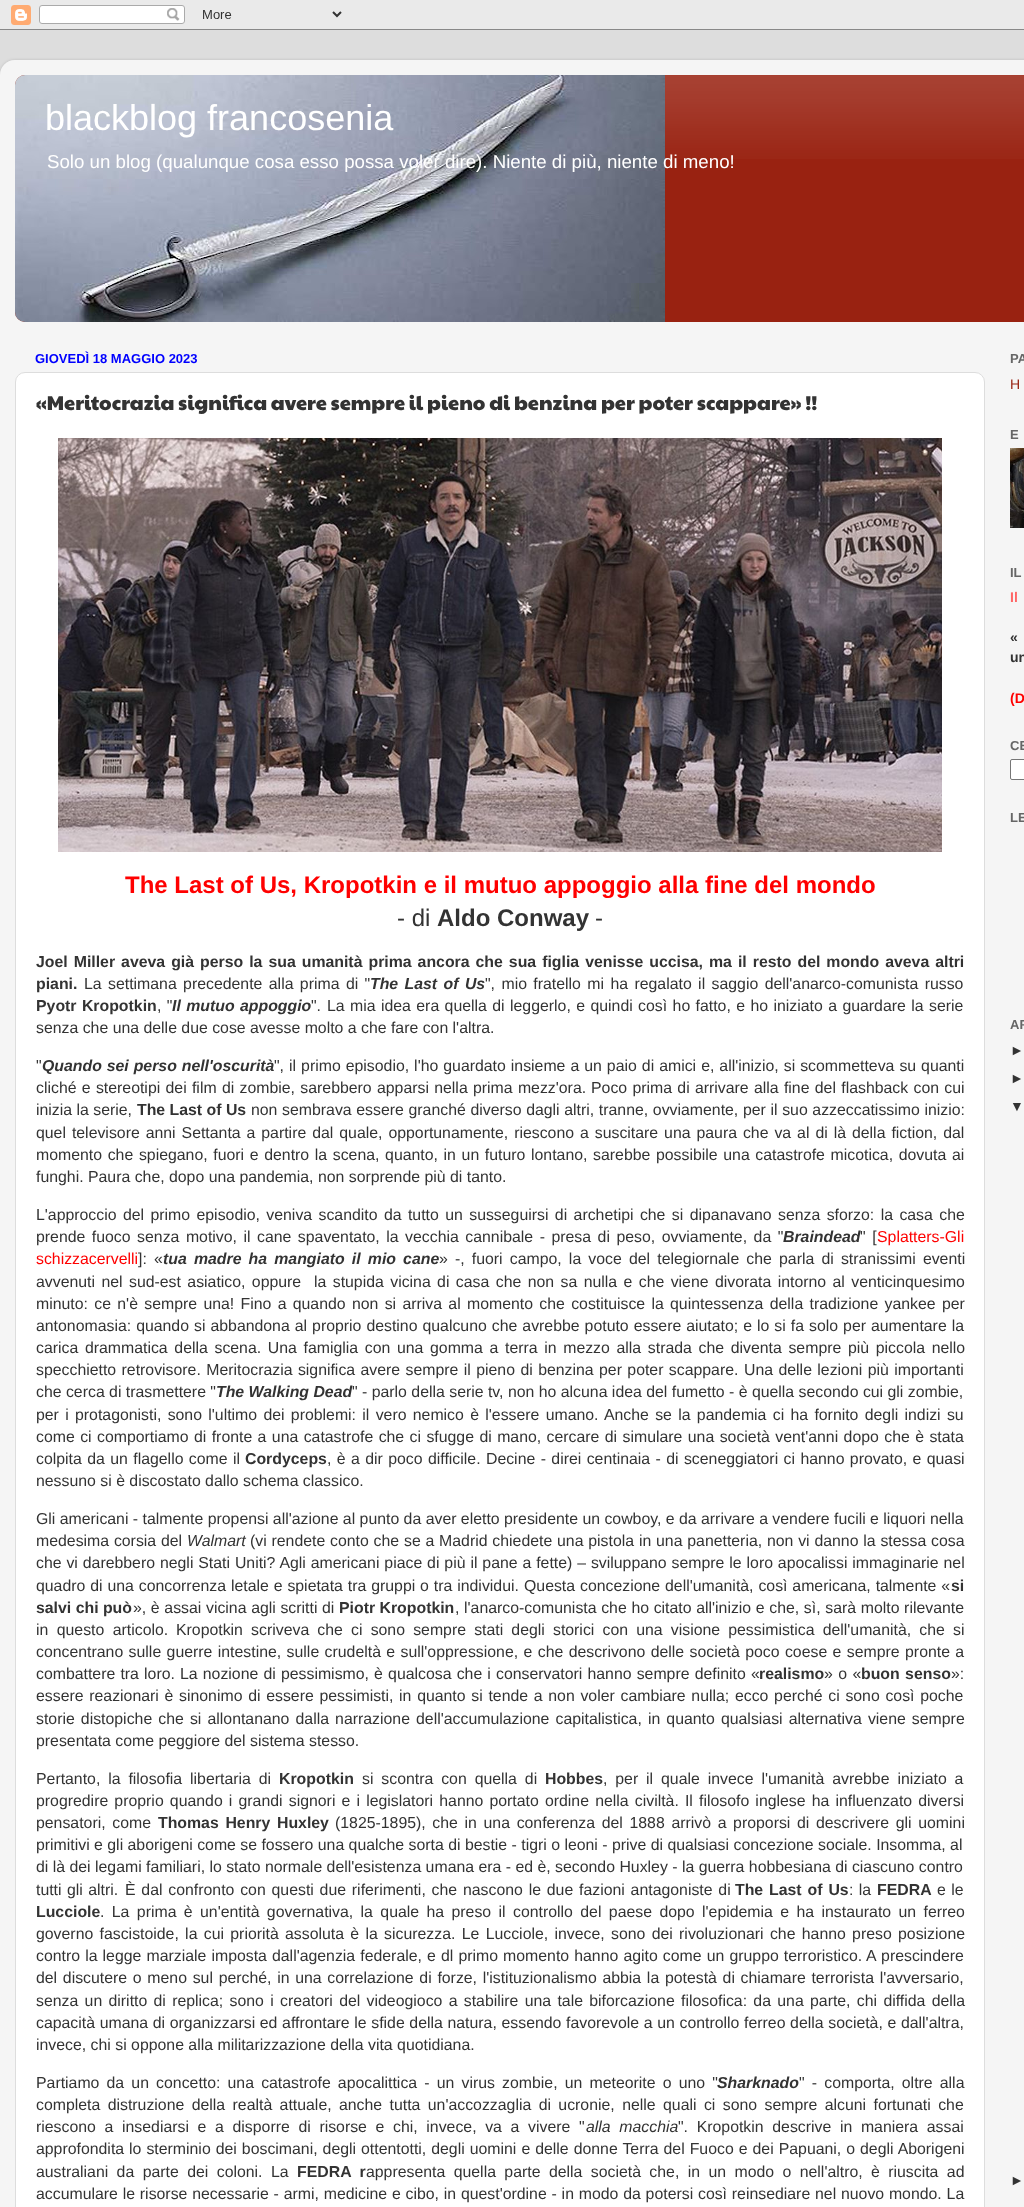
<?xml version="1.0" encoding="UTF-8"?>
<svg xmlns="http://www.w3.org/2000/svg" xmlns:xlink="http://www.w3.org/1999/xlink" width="1024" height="2207">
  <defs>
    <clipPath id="clip1"><path d="M 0 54 h 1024 v 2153 h -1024 z m 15 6 h 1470 c 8.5 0 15 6.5 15 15 v 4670 c 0 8.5 -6.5 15 -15 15 h -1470 c -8.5 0 -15 -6.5 -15 -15 v -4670 c 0 -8.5 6.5 -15 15 -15 z" clip-rule="evenodd" /></clipPath>
  </defs>
  <rect width="100%" height="100%" fill="#dddddd" />
  <image x="0" y="0" width="1024" height="30" xlink:href="image1.png" />
  <g clip-path="url(#clip1)">
    <rect y="60" width="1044" height="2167" rx="15" fill="#000000" fill-opacity="0.15" filter="blur(1.5px)" />
  </g>
  <image x="0" y="60" width="1024" height="2147" xlink:href="image2.png" />
  <rect x="15" y="75" width="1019" height="247" rx="10" fill="#992211" />
  <image x="15" y="75" width="1009" height="84" xlink:href="image3.png" />
  <image x="15" y="75" width="650" height="247" xlink:href="image4.png" />
  <rect x="15.5" y="372.5" width="969" height="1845" rx="9.5" fill="#ffffff" stroke="#dddddd" />
  <image x="58" y="438" width="884" height="414" xlink:href="image5.png" />
  <image x="1010" y="448" width="14" height="80" xlink:href="image6.png" />
  <rect x="1010.5" y="759.5" width="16" height="20" rx="1.5" fill="#ffffff" stroke="#767676" />
  <text x="45" y="130" style="font-family: Liberation Sans; font-size: 36px; fill: #ffffff">blackblog francosenia</text>
  <text x="47" y="168" style="font-family: Liberation Sans; font-size: 18.7px; fill: #ffffff">Solo un blog (qualunque cosa esso possa voler dire). Niente di più, niente di meno!</text>
  <text x="35" y="363" style="font-family: Liberation Sans; font-size: 13px; font-weight: bold; fill: #0000ff">GIOVEDÌ 18 MAGGIO 2023</text>
  <text x="36" y="410" style="font-family: Paytone One; font-size: 20px; fill: #333333">«Meritocrazia significa avere sempre il pieno di benzina per poter scappare» !!</text>
  <text x="125" y="893" style="font-family: Liberation Sans; font-size: 24px; font-weight: bold; fill: #ff0000">The Last of Us, Kropotkin e il mutuo appoggio alla fine del mondo</text>
  <text x="397" y="926" style="font-family: Liberation Sans; font-size: 24px; fill: #333333">- di</text>
  <text x="437" y="926" style="font-family: Liberation Sans; font-size: 24px; font-weight: bold; fill: #333333">Aldo Conway</text>
  <text x="595" y="926" style="font-family: Liberation Sans; font-size: 24px; fill: #333333">-</text>
  <text x="36" y="967" word-spacing="1.6" style="font-family: Liberation Sans; font-size: 15.85px; font-weight: bold; fill: #333333">Joel Miller aveva già perso la sua umanità prima ancora che sua figlia venisse uccisa, ma il resto del mondo aveva altri</text>
  <text x="36" y="989" style="font-family: Liberation Sans; font-size: 15.85px; font-weight: bold; fill: #333333">piani.</text>
  <text x="84" y="989" word-spacing="2" style="font-family: Liberation Sans; font-size: 15.85px; fill: #333333">La settimana precedente alla prima di "</text>
  <text x="370" y="989" word-spacing="2" style="font-family: Liberation Sans; font-size: 15.85px; font-weight: bold; font-style: italic; fill: #333333">The Last of Us</text>
  <text x="485" y="989" word-spacing="2" style="font-family: Liberation Sans; font-size: 15.85px; fill: #333333">", mio fratello mi ha regalato il saggio dell'anarco-comunista russo</text>
  <text x="36" y="1011" word-spacing="1" style="font-family: Liberation Sans; font-size: 15.85px; font-weight: bold; fill: #333333">Pyotr Kropotkin</text>
  <text x="157" y="1011" word-spacing="1" style="font-family: Liberation Sans; font-size: 15.85px; fill: #333333">, "</text>
  <text x="172" y="1011" word-spacing="1" style="font-family: Liberation Sans; font-size: 15.85px; font-weight: bold; font-style: italic; fill: #333333">Il mutuo appoggio</text>
  <text x="311" y="1011" style="font-family: Liberation Sans; font-size: 15.85px; fill: #333333">".</text>
  <text x="327" y="1011" word-spacing="1" style="font-family: Liberation Sans; font-size: 15.85px; fill: #333333">La mia idea era quella di leggerlo, e quindi così ho fatto, e ho iniziato a guardare la serie</text>
  <text x="36" y="1033" style="font-family: Liberation Sans; font-size: 15.85px; fill: #333333">senza che una delle due cose avesse molto a che fare con l'altra.</text>
  <text x="36" y="1071" style="font-family: Liberation Sans; font-size: 15.85px; fill: #333333">"</text>
  <text x="42" y="1071" word-spacing="0.5" style="font-family: Liberation Sans; font-size: 15.85px; font-weight: bold; font-style: italic; fill: #333333">Quando sei perso nell'oscurità</text>
  <text x="274" y="1071" word-spacing="0.6" style="font-family: Liberation Sans; font-size: 15.85px; fill: #333333">", il primo episodio, l'ho guardato insieme a un paio di amici e, all'inizio, si scommetteva su quanti</text>
  <text x="36" y="1093" word-spacing="0.9" style="font-family: Liberation Sans; font-size: 15.85px; fill: #333333">cliché e stereotipi dei film di zombie, sarebbero apparsi nella prima mezz'ora.</text>
  <text x="591" y="1093" word-spacing="0.9" style="font-family: Liberation Sans; font-size: 15.85px; fill: #333333">Poco prima di arrivare alla fine del flashback con cui</text>
  <text x="36" y="1115" style="font-family: Liberation Sans; font-size: 15.85px; fill: #333333">inizia la serie,</text>
  <text x="137" y="1115" style="font-family: Liberation Sans; font-size: 15.85px; font-weight: bold; fill: #333333">The Last of Us</text>
  <text x="251" y="1115" word-spacing="0.25" style="font-family: Liberation Sans; font-size: 15.85px; fill: #333333">non sembrava essere granché diverso dagli altri, tranne, ovviamente, per il suo azzeccatissimo inizio:</text>
  <text x="36" y="1138" word-spacing="1.55" style="font-family: Liberation Sans; font-size: 15.85px; fill: #333333">quel televisore anni Settanta a partire dal quale, opportunamente, riescono a suscitare una paura che va al di là della fiction, dal</text>
  <text x="36" y="1160" word-spacing="1.25" style="font-family: Liberation Sans; font-size: 15.85px; fill: #333333">momento che spiegano, fuori e dentro la scena, quanto, in un futuro lontano, sarebbe possibile una catastrofe micotica, dovuta ai</text>
  <text x="36" y="1182" style="font-family: Liberation Sans; font-size: 15.85px; fill: #333333">funghi. Paura che, dopo una pandemia, non sorprende più di tanto.</text>
  <text x="36" y="1220" word-spacing="2" style="font-family: Liberation Sans; font-size: 15.85px; fill: #333333">L'approccio del primo episodio, veniva scandito da tutto un susseguirsi di archetipi che si dipanavano senza sforzo: la casa che</text>
  <text x="36" y="1242" word-spacing="2.1" style="font-family: Liberation Sans; font-size: 15.85px; fill: #333333">prende fuoco senza motivo, il cane spaventato, la vecchia cannibale - presa di peso, ovviamente, da "</text>
  <text x="783" y="1242" style="font-family: Liberation Sans; font-size: 15.85px; font-weight: bold; font-style: italic; fill: #333333">Braindead</text>
  <text x="860" y="1242" word-spacing="2.1" style="font-family: Liberation Sans; font-size: 15.85px; fill: #333333">" [</text>
  <text x="877" y="1242" style="font-family: Liberation Sans; font-size: 15.85px; fill: #ff0000">Splatters-Gli</text>
  <text x="36" y="1264" style="font-family: Liberation Sans; font-size: 15.85px; fill: #ff0000">schizzacervelli</text>
  <text x="138" y="1264" word-spacing="2.75" style="font-family: Liberation Sans; font-size: 15.85px; fill: #333333">]: «</text>
  <text x="163" y="1264" word-spacing="2.75" style="font-family: Liberation Sans; font-size: 15.85px; font-weight: bold; font-style: italic; fill: #333333">tua madre ha mangiato il mio cane</text>
  <text x="439" y="1264" word-spacing="2.75" style="font-family: Liberation Sans; font-size: 15.85px; fill: #333333">» -, fuori campo, la voce del telegiornale che parla di stranissimi eventi</text>
  <text x="36" y="1287" word-spacing="2" style="font-family: Liberation Sans; font-size: 15.85px; fill: #333333" xml:space="preserve">avvenuti nel sud-est asiatico, oppure  la stupida vicina di casa che non sa nulla e che viene divorata intorno al venticinquesimo</text>
  <text x="36" y="1309" word-spacing="1.9" style="font-family: Liberation Sans; font-size: 15.85px; fill: #333333">minuto: ce n'è sempre una! Fino a quando non si arriva al momento che costituisce la quintessenza della tradizione yankee per</text>
  <text x="36" y="1331" word-spacing="0.6" style="font-family: Liberation Sans; font-size: 15.85px; fill: #333333">antonomasia: quando si abbandona al proprio destino qualcuno che avrebbe potuto essere aiutato; e lo si fa solo per aumentare la</text>
  <text x="36" y="1353" word-spacing="2.25" style="font-family: Liberation Sans; font-size: 15.85px; fill: #333333">carica drammatica della scena. Una famiglia con una gomma a terra in mezzo alla strada che diventa sempre più piccola nello</text>
  <text x="36" y="1375" word-spacing="1" style="font-family: Liberation Sans; font-size: 15.85px; fill: #333333">specchietto retrovisore. Meritocrazia significa avere sempre il pieno di benzina per poter scappare.</text>
  <text x="744" y="1375" word-spacing="1" style="font-family: Liberation Sans; font-size: 15.85px; fill: #333333">Una delle lezioni più importanti</text>
  <text x="36" y="1397" style="font-family: Liberation Sans; font-size: 15.85px; fill: #333333">che cerca di trasmettere "</text>
  <text x="216" y="1397" style="font-family: Liberation Sans; font-size: 15.85px; font-weight: bold; font-style: italic; fill: #333333">The Walking Dead</text>
  <text x="352" y="1397" style="font-family: Liberation Sans; font-size: 15.85px; fill: #333333">" - parlo della serie tv, non ho alcuna idea del fumetto - è quella secondo cui gli zombie,</text>
  <text x="36" y="1420" word-spacing="1.9" style="font-family: Liberation Sans; font-size: 15.85px; fill: #333333">per i protagonisti, sono l'ultimo dei problemi: il vero nemico è l'essere umano. Anche se la pandemia ci ha fornito degli indizi su</text>
  <text x="36" y="1442" word-spacing="1" style="font-family: Liberation Sans; font-size: 15.85px; fill: #333333">come ci comportiamo di fronte a una catastrofe che ci sfugge di mano, cercare di simulare una società vent'anni dopo che è stata</text>
  <text x="36" y="1464" word-spacing="1" style="font-family: Liberation Sans; font-size: 15.85px; fill: #333333">colpita da un flagello come il</text>
  <text x="245" y="1464" style="font-family: Liberation Sans; font-size: 15.85px; font-weight: bold; fill: #333333">Cordyceps</text>
  <text x="327" y="1464" word-spacing="1" style="font-family: Liberation Sans; font-size: 15.85px; fill: #333333">, è a dir poco difficile. Decine - direi centinaia - di sceneggiatori ci hanno provato, e quasi</text>
  <text x="36" y="1486" style="font-family: Liberation Sans; font-size: 15.85px; fill: #333333">nessuno si è discostato dallo schema classico.</text>
  <text x="36" y="1524" style="font-family: Liberation Sans; font-size: 15.85px; fill: #333333">Gli americani - talmente propensi all'azione al punto da aver eletto presidente un cowboy, e da arrivare a vendere fucili e liquori nella</text>
  <text x="36" y="1546" word-spacing="0.4" style="font-family: Liberation Sans; font-size: 15.85px; fill: #333333">medesima corsia del</text>
  <text x="187" y="1546" style="font-family: Liberation Sans; font-size: 15.85px; font-style: italic; fill: #333333">Walmart</text>
  <text x="250" y="1546" word-spacing="0.4" style="font-family: Liberation Sans; font-size: 15.85px; fill: #333333">(vi rendete conto che se a Madrid chiedete una pistola in una panetteria, non vi danno la stessa cosa</text>
  <text x="36" y="1568" word-spacing="0.5" style="font-family: Liberation Sans; font-size: 15.85px; fill: #333333">che vi darebbero negli Stati Uniti? Agli americani piace di più il pane a fette) – sviluppano sempre le loro apocalissi immaginarie nel</text>
  <text x="36" y="1591" word-spacing="0.5" style="font-family: Liberation Sans; font-size: 15.85px; fill: #333333">quadro di una concorrenza letale e spietata tra gruppi o tra individui.</text>
  <text x="524" y="1591" word-spacing="0.5" style="font-family: Liberation Sans; font-size: 15.85px; fill: #333333">Questa concezione dell'umanità, così americana, talmente «</text>
  <text x="951" y="1591" style="font-family: Liberation Sans; font-size: 15.85px; font-weight: bold; fill: #333333">si</text>
  <text x="36" y="1613" style="font-family: Liberation Sans; font-size: 15.85px; font-weight: bold; fill: #333333">salvi chi può</text>
  <text x="133" y="1613" word-spacing="0.25" style="font-family: Liberation Sans; font-size: 15.85px; fill: #333333">», è assai vicina agli scritti di</text>
  <text x="339" y="1613" style="font-family: Liberation Sans; font-size: 15.85px; font-weight: bold; fill: #333333">Piotr Kropotkin</text>
  <text x="455" y="1613" word-spacing="0.25" style="font-family: Liberation Sans; font-size: 15.85px; fill: #333333">, l'anarco-comunista che ho citato all'inizio e che, sì, sarà molto rilevante</text>
  <text x="36" y="1635" word-spacing="4" style="font-family: Liberation Sans; font-size: 15.85px; fill: #333333">in questo articolo.</text>
  <text x="176" y="1635" word-spacing="3.75" style="font-family: Liberation Sans; font-size: 15.85px; fill: #333333">Kropotkin scriveva che ci sono sempre stati degli storici con una visione pessimistica dell'umanità, che si</text>
  <text x="36" y="1657" word-spacing="1" style="font-family: Liberation Sans; font-size: 15.85px; fill: #333333">concentrano sulle guerre intestine, sulle crudeltà e sull'oppressione, e che descrivono delle società poco coese e sempre pronte a</text>
  <text x="36" y="1679" word-spacing="0.75" style="font-family: Liberation Sans; font-size: 15.85px; fill: #333333">combattere tra loro. La nozione di pessimismo, è qualcosa che i conservatori hanno sempre definito «</text>
  <text x="759" y="1679" style="font-family: Liberation Sans; font-size: 15.85px; font-weight: bold; fill: #333333">realismo</text>
  <text x="824" y="1679" word-spacing="1" style="font-family: Liberation Sans; font-size: 15.85px; fill: #333333">» o «</text>
  <text x="861" y="1679" word-spacing="1" style="font-family: Liberation Sans; font-size: 15.85px; font-weight: bold; fill: #333333">buon senso</text>
  <text x="951" y="1679" style="font-family: Liberation Sans; font-size: 15.85px; fill: #333333">»:</text>
  <text x="36" y="1701" word-spacing="1.3" style="font-family: Liberation Sans; font-size: 15.85px; fill: #333333">essere reazionari è sinonimo di essere pessimisti, in quanto si tende a non voler cambiare nulla; ecco perché ci sono così poche</text>
  <text x="36" y="1724" word-spacing="1.7" style="font-family: Liberation Sans; font-size: 15.85px; fill: #333333">storie distopiche che si allontanano dalla narrazione dell'accumulazione capitalistica, in quanto qualsiasi alternativa viene sempre</text>
  <text x="36" y="1746" style="font-family: Liberation Sans; font-size: 15.85px; fill: #333333">presentata come peggiore del sistema stesso.</text>
  <text x="36" y="1784" word-spacing="3.5" style="font-family: Liberation Sans; font-size: 15.85px; fill: #333333">Pertanto, la filosofia libertaria di</text>
  <text x="279" y="1784" style="font-family: Liberation Sans; font-size: 15.85px; font-weight: bold; fill: #333333">Kropotkin</text>
  <text x="362" y="1784" word-spacing="3.5" style="font-family: Liberation Sans; font-size: 15.85px; fill: #333333">si scontra con quella di</text>
  <text x="545" y="1784" style="font-family: Liberation Sans; font-size: 15.85px; font-weight: bold; fill: #333333">Hobbes</text>
  <text x="603" y="1784" word-spacing="3.5" style="font-family: Liberation Sans; font-size: 15.85px; fill: #333333">, per il quale invece l'umanità avrebbe iniziato a</text>
  <text x="36" y="1806" word-spacing="1.75" style="font-family: Liberation Sans; font-size: 15.85px; fill: #333333">progredire proprio quando i grandi signori e i legislatori hanno portato ordine nella civiltà. Il filosofo inglese ha influenzato diversi</text>
  <text x="36" y="1828" word-spacing="2.25" style="font-family: Liberation Sans; font-size: 15.85px; fill: #333333">pensatori, come</text>
  <text x="158" y="1828" word-spacing="2.25" style="font-family: Liberation Sans; font-size: 15.85px; font-weight: bold; fill: #333333">Thomas Henry Huxley</text>
  <text x="335" y="1828" word-spacing="2.25" style="font-family: Liberation Sans; font-size: 15.85px; fill: #333333">(1825-1895), che in una conferenza del 1888 arrivò a proporsi di descrivere gli uomini</text>
  <text x="36" y="1850" style="font-family: Liberation Sans; font-size: 15.85px; fill: #333333">primitivi e gli aborigeni come se fossero una qualche sorta di bestie - tigri o leoni - prive di qualsiasi concezione sociale. Insomma, al</text>
  <text x="36" y="1872" style="font-family: Liberation Sans; font-size: 15.85px; fill: #333333">di là dei legami familiari, lo stato normale dell'esistenza umana era - ed è, secondo Huxley - la guerra hobbesiana di ciascuno contro</text>
  <text x="36" y="1895" word-spacing="1" style="font-family: Liberation Sans; font-size: 15.85px; fill: #333333">tutti gli altri.</text>
  <text x="125" y="1895" word-spacing="1.4" style="font-family: Liberation Sans; font-size: 15.85px; fill: #333333">È dal confronto con questi due riferimenti, che nascono le due fazioni antagoniste di</text>
  <text x="735" y="1895" word-spacing="1.5" style="font-family: Liberation Sans; font-size: 15.85px; font-weight: bold; fill: #333333">The Last of Us</text>
  <text x="849" y="1895" word-spacing="1" style="font-family: Liberation Sans; font-size: 15.85px; fill: #333333">: la</text>
  <text x="877" y="1895" style="font-family: Liberation Sans; font-size: 15.85px; font-weight: bold; fill: #333333">FEDRA</text>
  <text x="937" y="1895" word-spacing="1" style="font-family: Liberation Sans; font-size: 15.85px; fill: #333333">e le</text>
  <text x="36" y="1917" style="font-family: Liberation Sans; font-size: 15.85px; font-weight: bold; fill: #333333">Lucciole</text>
  <text x="100" y="1917" word-spacing="3" style="font-family: Liberation Sans; font-size: 15.85px; fill: #333333">. La prima è un'entità governativa, la quale ha preso il controllo del paese dopo l'epidemia e ha instaurato un ferreo</text>
  <text x="36" y="1939" word-spacing="1.9" style="font-family: Liberation Sans; font-size: 15.85px; fill: #333333">governo fascistoide, la cui priorità assoluta è la sicurezza. Le Lucciole, invece, sono dei rivoluzionari che hanno preso posizione</text>
  <text x="36" y="1961" word-spacing="0.7" style="font-family: Liberation Sans; font-size: 15.85px; fill: #333333">contro la legge marziale imposta dall'agenzia federale, e dl primo momento hanno agito come un gruppo terroristico.</text>
  <text x="866" y="1961" word-spacing="1" style="font-family: Liberation Sans; font-size: 15.85px; fill: #333333">A prescindere</text>
  <text x="36" y="1983" word-spacing="1.3" style="font-family: Liberation Sans; font-size: 15.85px; fill: #333333">del discutere o meno sul perché, in una correlazione di forze, l'istituzionalismo abbia la potestà di chiamare terrorista l'avversario,</text>
  <text x="36" y="2006" word-spacing="1.9" style="font-family: Liberation Sans; font-size: 15.85px; fill: #333333">senza un diritto di replica; sono i creatori del videogioco a stabilire una tale biforcazione filosofica: da una parte, chi diffida della</text>
  <text x="36" y="2028" word-spacing="0.25" style="font-family: Liberation Sans; font-size: 15.85px; fill: #333333">capacità umana di organizzarsi ed affrontare le sfide della natura, essendo favorevole a un controllo ferreo della società, e dall'altra,</text>
  <text x="36" y="2050" style="font-family: Liberation Sans; font-size: 15.85px; fill: #333333">invece, chi si oppone alla militarizzazione della vita quotidiana.</text>
  <text x="36" y="2088" word-spacing="2.75" style="font-family: Liberation Sans; font-size: 15.85px; fill: #333333">Partiamo da un concetto: una catastrofe apocalittica - un virus zombie, un meteorite o uno "</text>
  <text x="717" y="2088" style="font-family: Liberation Sans; font-size: 15.85px; font-weight: bold; font-style: italic; fill: #333333">Sharknado</text>
  <text x="799" y="2088" word-spacing="2.75" style="font-family: Liberation Sans; font-size: 15.85px; fill: #333333">" - comporta, oltre alla</text>
  <text x="36" y="2110" word-spacing="3" style="font-family: Liberation Sans; font-size: 15.85px; fill: #333333">completa distruzione della realtà attuale, anche tutta un'accozzaglia di ucronie, nelle quali ci sono sempre alcuni fortunati che</text>
  <text x="36" y="2132" word-spacing="4.25" style="font-family: Liberation Sans; font-size: 15.85px; fill: #333333">riescono a insediarsi e a disporre di risorse e chi, invece, va a vivere "</text>
  <text x="586" y="2132" word-spacing="4.25" style="font-family: Liberation Sans; font-size: 15.85px; font-style: italic; fill: #333333">alla macchia</text>
  <text x="678" y="2132" word-spacing="4.25" style="font-family: Liberation Sans; font-size: 15.85px; fill: #333333">". Kropotkin descrive in maniera assai</text>
  <text x="36" y="2154" word-spacing="0.6" style="font-family: Liberation Sans; font-size: 15.85px; fill: #333333">approfondita lo sterminio dei boscimani, degli ottentotti, degli uomini e delle donne Terra del Fuoco e dei Papuani, o degli Aborigeni</text>
  <text x="36" y="2177" word-spacing="4" style="font-family: Liberation Sans; font-size: 15.85px; fill: #333333">australiani da parte dei coloni.</text>
  <text x="271" y="2177" style="font-family: Liberation Sans; font-size: 15.85px; fill: #333333">La</text>
  <text x="297" y="2177" word-spacing="4" style="font-family: Liberation Sans; font-size: 15.85px; font-weight: bold; fill: #333333">FEDRA r</text>
  <text x="366" y="2177" word-spacing="4" style="font-family: Liberation Sans; font-size: 15.85px; fill: #333333">appresenta quella parte della società che, in un modo o nell'altro, è riuscita ad</text>
  <text x="36" y="2199" word-spacing="0.4" style="font-family: Liberation Sans; font-size: 15.85px; fill: #333333">accumulare le risorse necessarie - armi, medicine e cibo, in quest'ordine - in modo da potersi così reinsediare nel nuovo mondo. La</text>
  <text x="1010" y="363" style="font-family: Liberation Sans; font-size: 13px; font-weight: bold; fill: #666666">PA</text>
  <text x="1010" y="389" style="font-family: Liberation Sans; font-size: 14px; fill: #992211">H</text>
  <text x="1010" y="439" style="font-family: Liberation Sans; font-size: 13px; font-weight: bold; fill: #666666">E</text>
  <text x="1010" y="577" style="font-family: Liberation Sans; font-size: 13px; font-weight: bold; fill: #666666">IL</text>
  <text x="1010" y="602" style="font-family: Liberation Sans; font-size: 14px; font-weight: bold; fill: #ff6666">Il</text>
  <text x="1010" y="642" style="font-family: Liberation Sans; font-size: 14px; font-weight: bold; fill: #333333">«</text>
  <text x="1010" y="662" style="font-family: Liberation Sans; font-size: 14px; font-weight: bold; fill: #333333">un</text>
  <text x="1010" y="703" style="font-family: Liberation Sans; font-size: 14px; font-weight: bold; fill: #ff0000">(D</text>
  <text x="1010" y="750" style="font-family: Liberation Sans; font-size: 13px; font-weight: bold; fill: #666666">CE</text>
  <text x="1010" y="822" style="font-family: Liberation Sans; font-size: 13px; font-weight: bold; fill: #666666">LE</text>
  <text x="1010" y="1029" style="font-family: Liberation Sans; font-size: 13px; font-weight: bold; fill: #666666">AR</text>
  <text x="1010" y="1055" style="font-family: Liberation Sans; font-size: 14px; fill: #333333">►</text>
  <text x="1010" y="1083" style="font-family: Liberation Sans; font-size: 14px; fill: #333333">►</text>
  <text x="1010" y="1111" style="font-family: Liberation Sans; font-size: 14px; fill: #333333">▼</text>
  <text x="1010" y="2185" style="font-family: Liberation Sans; font-size: 14px; fill: #333333">►</text>
</svg>
